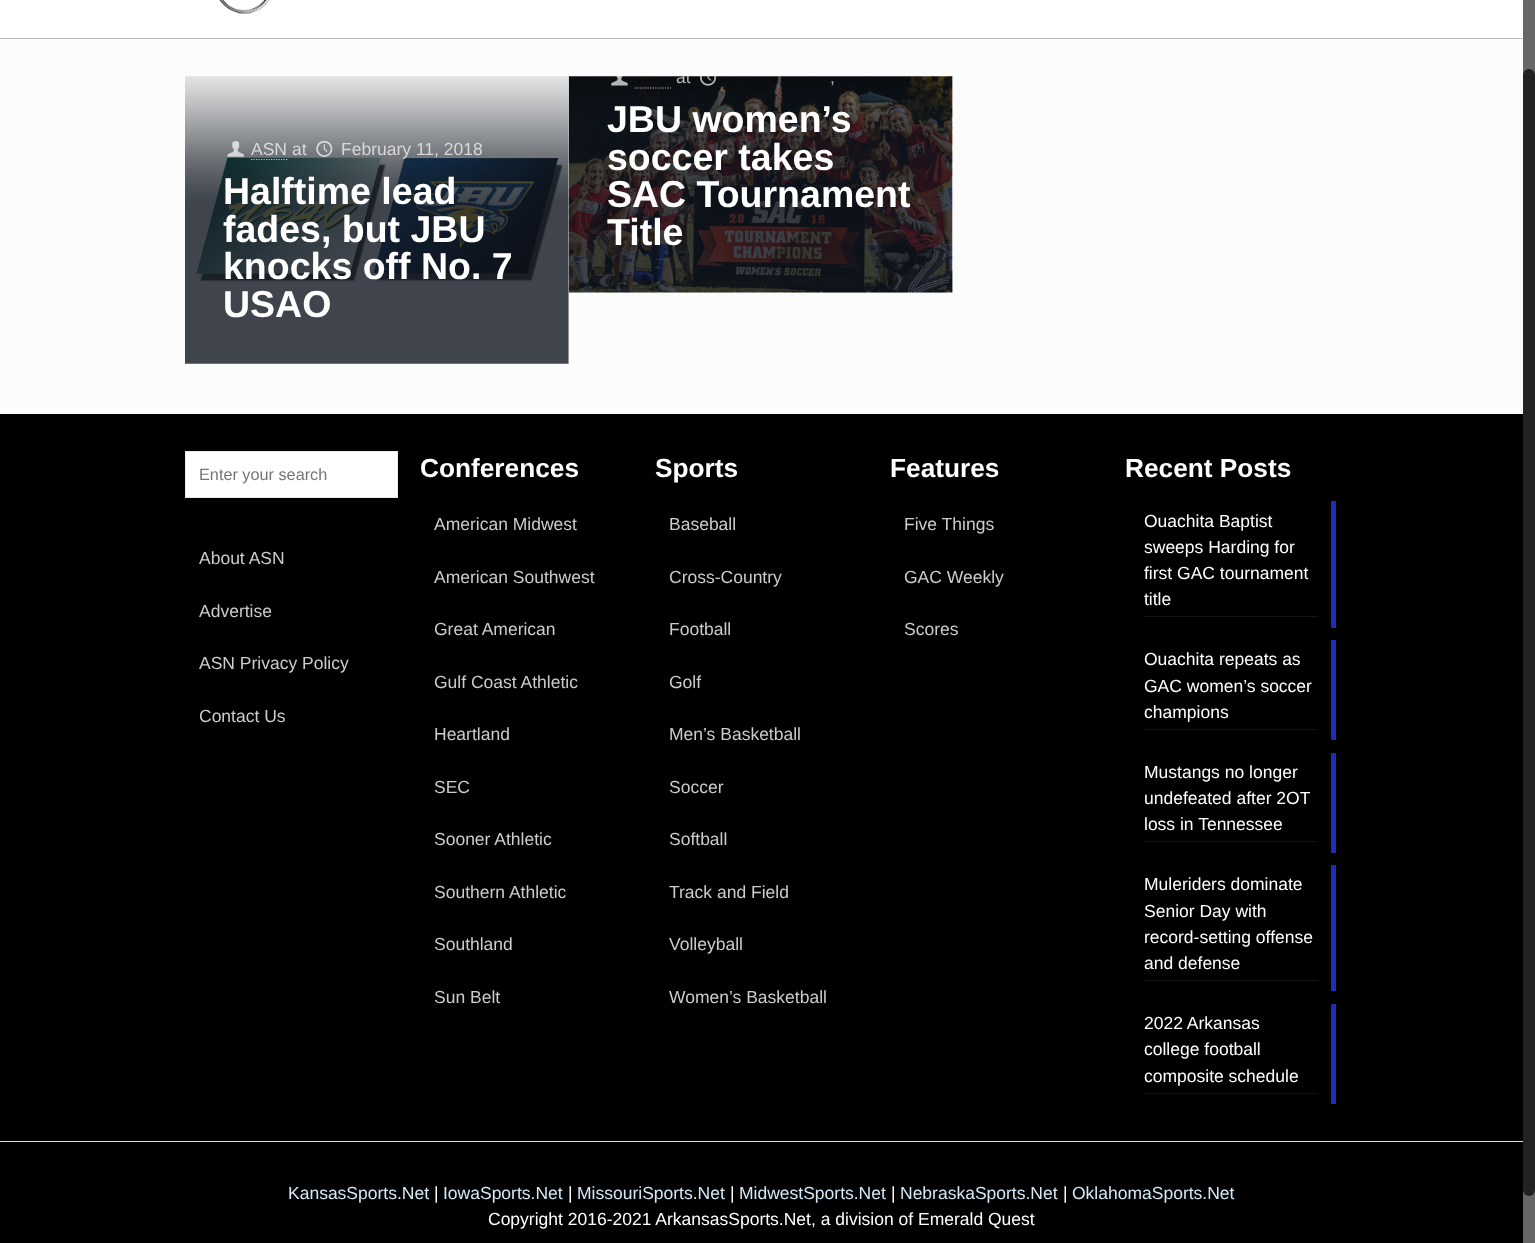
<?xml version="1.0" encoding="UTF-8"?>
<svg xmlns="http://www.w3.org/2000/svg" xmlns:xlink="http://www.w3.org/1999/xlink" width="1535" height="1243">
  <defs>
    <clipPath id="clip1"><rect x="569" y="76" width="384" height="217" /></clipPath>
  </defs>
  <rect width="100%" height="100%" fill="#fcfcfc" />
  <rect width="1523" height="38" fill="#ffffff" />
  <rect y="38" width="1523" height="1" fill="#bbbcbf" />
  <image x="219" y="0" width="50" height="14" xlink:href="image1.png" />
  <image x="195" y="156" width="368" height="126" xlink:href="image5.png" />
  <image x="185" y="76" width="384" height="288" xlink:href="image2.png" />
  <image x="227" y="141" width="17" height="16" xlink:href="image3.png" />
  <path d="M 251 159.5 h 36.5" fill="none" stroke="#ffffff" stroke-opacity="0.7" stroke-width="1.2" stroke-dasharray="1.25 1.25" />
  <image x="316" y="140" width="17" height="17" xlink:href="image4.png" />
  <image x="568" y="76" width="385" height="217" xlink:href="image6.png" />
  <image x="568" y="76" width="385" height="217" xlink:href="image7.png" />
  <image x="611" y="76" width="17" height="10" xlink:href="image8.png" />
  <path d="M 635 88 h 36" fill="none" stroke="#ffffff" stroke-opacity="0.7" stroke-width="1.2" stroke-dasharray="1.25 1.25" />
  <image x="700" y="76" width="17" height="10" xlink:href="image9.png" />
  <rect y="414" width="1523" height="829" fill="#000000" />
  <rect x="185.5" y="451.5" width="212" height="46" fill="#ffffff" stroke="#ebebeb" />
  <rect x="1144" y="616" width="174" height="1" fill="#141414" />
  <rect x="1331" y="501" width="5" height="127" fill="#1c2dbd" />
  <rect x="1144" y="729" width="174" height="1" fill="#141414" />
  <rect x="1331" y="640" width="5" height="100" fill="#1c2dbd" />
  <rect x="1144" y="841" width="174" height="1" fill="#141414" />
  <rect x="1331" y="753" width="5" height="100" fill="#1c2dbd" />
  <rect x="1144" y="980" width="174" height="1" fill="#141414" />
  <rect x="1331" y="865" width="5" height="126" fill="#1c2dbd" />
  <rect x="1144" y="1093" width="174" height="1" fill="#141414" />
  <rect x="1331" y="1004" width="5" height="100" fill="#1c2dbd" />
  <rect y="1141" width="1523" height="1" fill="#e0e1e2" />
  <rect x="1523" width="12" height="1243" fill="#666666" />
  <rect x="1523" y="69" width="12" height="1127" rx="6" fill="#222222" />
  <text x="251" y="155" style="font-family: Liberation Sans; font-size: 17.5px; fill: #d7d8da">ASN</text>
  <text x="292" y="155" style="font-family: Liberation Sans; font-size: 17.5px; fill: #d7d8da">at</text>
  <text x="341" y="155" style="font-family: Liberation Sans; font-size: 17.5px; fill: #d7d8da">February 11, 2018</text>
  <text x="223" y="204" style="font-family: Liberation Sans; font-size: 37.5px; font-weight: bold; fill: #ffffff">Halftime lead</text>
  <text x="223" y="242" style="font-family: Liberation Sans; font-size: 37.5px; font-weight: bold; fill: #ffffff">fades, but JBU</text>
  <text x="223" y="279" style="font-family: Liberation Sans; font-size: 37.5px; font-weight: bold; fill: #ffffff">knocks off No. 7</text>
  <text x="223" y="317" style="font-family: Liberation Sans; font-size: 37.5px; font-weight: bold; fill: #ffffff">USAO</text>
  <g clip-path="url(#clip1)">
    <text x="676" y="83" style="font-family: Liberation Sans; font-size: 17.5px; fill: #b7b8ba">at</text>
  </g>
  <text x="830" y="83" style="font-family: Liberation Sans; font-size: 17.5px; fill: #b7b8ba">,</text>
  <text x="607" y="132" style="font-family: Liberation Sans; font-size: 37.5px; font-weight: bold; fill: #ffffff">JBU women’s</text>
  <text x="607" y="170" style="font-family: Liberation Sans; font-size: 37.5px; font-weight: bold; fill: #ffffff">soccer takes</text>
  <text x="607" y="207" style="font-family: Liberation Sans; font-size: 37.5px; font-weight: bold; fill: #ffffff">SAC Tournament</text>
  <text x="607" y="245" style="font-family: Liberation Sans; font-size: 37.5px; font-weight: bold; fill: #ffffff">Title</text>
  <text x="199" y="480" style="font-family: Liberation Sans; font-size: 16.25px; fill: #757575">Enter your search</text>
  <text x="199" y="564" style="font-family: Liberation Sans; font-size: 17.5px; fill: #cccccc">About ASN</text>
  <text x="199" y="617" style="font-family: Liberation Sans; font-size: 17.5px; fill: #cccccc">Advertise</text>
  <text x="199" y="669" style="font-family: Liberation Sans; font-size: 17.5px; fill: #cccccc">ASN Privacy Policy</text>
  <text x="199" y="722" style="font-family: Liberation Sans; font-size: 17.5px; fill: #cccccc">Contact Us</text>
  <text x="420" y="477" style="font-family: Liberation Sans; font-size: 26.25px; font-weight: bold; fill: #ffffff">Conferences</text>
  <text x="434" y="530" style="font-family: Liberation Sans; font-size: 17.5px; fill: #cccccc">American Midwest</text>
  <text x="434" y="583" style="font-family: Liberation Sans; font-size: 17.5px; fill: #cccccc">American Southwest</text>
  <text x="434" y="635" style="font-family: Liberation Sans; font-size: 17.5px; fill: #cccccc">Great American</text>
  <text x="434" y="688" style="font-family: Liberation Sans; font-size: 17.5px; fill: #cccccc">Gulf Coast Athletic</text>
  <text x="434" y="740" style="font-family: Liberation Sans; font-size: 17.5px; fill: #cccccc">Heartland</text>
  <text x="434" y="793" style="font-family: Liberation Sans; font-size: 17.5px; fill: #cccccc">SEC</text>
  <text x="434" y="845" style="font-family: Liberation Sans; font-size: 17.5px; fill: #cccccc">Sooner Athletic</text>
  <text x="434" y="898" style="font-family: Liberation Sans; font-size: 17.5px; fill: #cccccc">Southern Athletic</text>
  <text x="434" y="950" style="font-family: Liberation Sans; font-size: 17.5px; fill: #cccccc">Southland</text>
  <text x="434" y="1003" style="font-family: Liberation Sans; font-size: 17.5px; fill: #cccccc">Sun Belt</text>
  <text x="655" y="477" style="font-family: Liberation Sans; font-size: 26.25px; font-weight: bold; fill: #ffffff">Sports</text>
  <text x="669" y="530" style="font-family: Liberation Sans; font-size: 17.5px; fill: #cccccc">Baseball</text>
  <text x="669" y="583" style="font-family: Liberation Sans; font-size: 17.5px; fill: #cccccc">Cross-Country</text>
  <text x="669" y="635" style="font-family: Liberation Sans; font-size: 17.5px; fill: #cccccc">Football</text>
  <text x="669" y="688" style="font-family: Liberation Sans; font-size: 17.5px; fill: #cccccc">Golf</text>
  <text x="669" y="740" style="font-family: Liberation Sans; font-size: 17.5px; fill: #cccccc">Men’s Basketball</text>
  <text x="669" y="793" style="font-family: Liberation Sans; font-size: 17.5px; fill: #cccccc">Soccer</text>
  <text x="669" y="845" style="font-family: Liberation Sans; font-size: 17.5px; fill: #cccccc">Softball</text>
  <text x="669" y="898" style="font-family: Liberation Sans; font-size: 17.5px; fill: #cccccc">Track and Field</text>
  <text x="669" y="950" style="font-family: Liberation Sans; font-size: 17.5px; fill: #cccccc">Volleyball</text>
  <text x="669" y="1003" style="font-family: Liberation Sans; font-size: 17.5px; fill: #cccccc">Women’s Basketball</text>
  <text x="890" y="477" style="font-family: Liberation Sans; font-size: 26.25px; font-weight: bold; fill: #ffffff">Features</text>
  <text x="904" y="530" style="font-family: Liberation Sans; font-size: 17.5px; fill: #cccccc">Five Things</text>
  <text x="904" y="583" style="font-family: Liberation Sans; font-size: 17.5px; fill: #cccccc">GAC Weekly</text>
  <text x="904" y="635" style="font-family: Liberation Sans; font-size: 17.5px; fill: #cccccc">Scores</text>
  <text x="1125" y="477" style="font-family: Liberation Sans; font-size: 26.25px; font-weight: bold; fill: #ffffff">Recent Posts</text>
  <text x="1144" y="527" style="font-family: Liberation Sans; font-size: 17.5px; fill: #ffffff">Ouachita Baptist</text>
  <text x="1144" y="553" style="font-family: Liberation Sans; font-size: 17.5px; fill: #ffffff">sweeps Harding for</text>
  <text x="1144" y="579" style="font-family: Liberation Sans; font-size: 17.5px; fill: #ffffff">first GAC tournament</text>
  <text x="1144" y="605" style="font-family: Liberation Sans; font-size: 17.5px; fill: #ffffff">title</text>
  <text x="1144" y="665" style="font-family: Liberation Sans; font-size: 17.5px; fill: #ffffff">Ouachita repeats as</text>
  <text x="1144" y="692" style="font-family: Liberation Sans; font-size: 17.5px; fill: #ffffff">GAC women’s soccer</text>
  <text x="1144" y="718" style="font-family: Liberation Sans; font-size: 17.5px; fill: #ffffff">champions</text>
  <text x="1144" y="778" style="font-family: Liberation Sans; font-size: 17.5px; fill: #ffffff">Mustangs no longer</text>
  <text x="1144" y="804" style="font-family: Liberation Sans; font-size: 17.5px; fill: #ffffff">undefeated after 2OT</text>
  <text x="1144" y="830" style="font-family: Liberation Sans; font-size: 17.5px; fill: #ffffff">loss in Tennessee</text>
  <text x="1144" y="890" style="font-family: Liberation Sans; font-size: 17.5px; fill: #ffffff">Muleriders dominate</text>
  <text x="1144" y="917" style="font-family: Liberation Sans; font-size: 17.5px; fill: #ffffff">Senior Day with</text>
  <text x="1144" y="943" style="font-family: Liberation Sans; font-size: 17.5px; fill: #ffffff">record-setting offense</text>
  <text x="1144" y="969" style="font-family: Liberation Sans; font-size: 17.5px; fill: #ffffff">and defense</text>
  <text x="1144" y="1029" style="font-family: Liberation Sans; font-size: 17.5px; fill: #ffffff">2022 Arkansas</text>
  <text x="1144" y="1055" style="font-family: Liberation Sans; font-size: 17.5px; fill: #ffffff">college football</text>
  <text x="1144" y="1082" style="font-family: Liberation Sans; font-size: 17.5px; fill: #ffffff">composite schedule</text>
  <text x="288" y="1199" style="font-family: Liberation Sans; font-size: 17.5px; fill: #d4e9f7">KansasSports.Net</text>
  <text x="434" y="1199" style="font-family: Liberation Sans; font-size: 17.5px; fill: #ffffff">|</text>
  <text x="443" y="1199" style="font-family: Liberation Sans; font-size: 17.5px; fill: #d4e9f7">IowaSports.Net</text>
  <text x="568" y="1199" style="font-family: Liberation Sans; font-size: 17.5px; fill: #ffffff">|</text>
  <text x="577" y="1199" style="font-family: Liberation Sans; font-size: 17.5px; fill: #d4e9f7">MissouriSports.Net</text>
  <text x="730" y="1199" style="font-family: Liberation Sans; font-size: 17.5px; fill: #ffffff">|</text>
  <text x="739" y="1199" style="font-family: Liberation Sans; font-size: 17.5px; fill: #d4e9f7">MidwestSports.Net</text>
  <text x="891" y="1199" style="font-family: Liberation Sans; font-size: 17.5px; fill: #ffffff">|</text>
  <text x="900" y="1199" style="font-family: Liberation Sans; font-size: 17.5px; fill: #d4e9f7">NebraskaSports.Net</text>
  <text x="1063" y="1199" style="font-family: Liberation Sans; font-size: 17.5px; fill: #ffffff">|</text>
  <text x="1072" y="1199" style="font-family: Liberation Sans; font-size: 17.5px; fill: #d4e9f7">OklahomaSports.Net</text>
  <text x="488" y="1225" style="font-family: Liberation Sans; font-size: 17.5px; fill: #ffffff">Copyright 2016-2021 ArkansasSports.Net, a division of Emerald Quest</text>
</svg>
